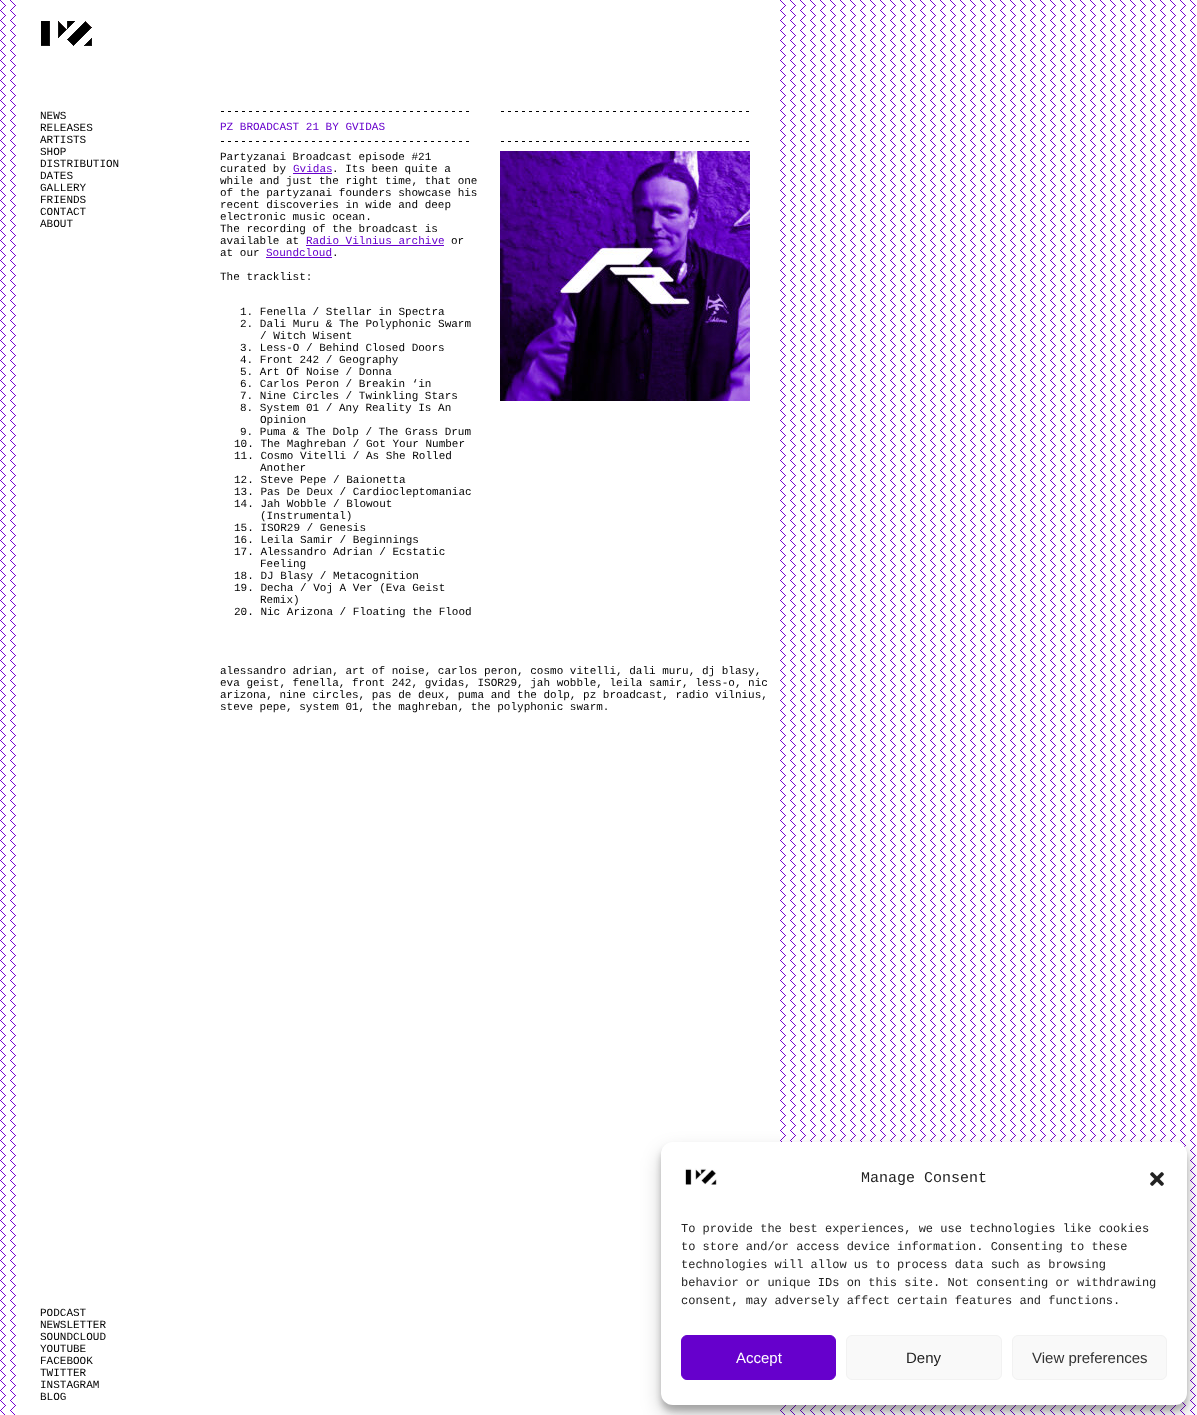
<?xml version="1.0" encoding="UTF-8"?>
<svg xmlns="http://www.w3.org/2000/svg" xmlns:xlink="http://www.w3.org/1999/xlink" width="1197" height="1415">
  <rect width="100%" height="100%" fill="#ffffff" />
  <image x="0" y="0" width="1196" height="1415" xlink:href="image1.png" />
  <rect x="20" width="756" height="1415" fill="#ffffff" />
  <image x="41" y="21" width="51" height="25" xlink:href="image2.png" />
  <image x="221" y="111" width="248" height="1" xlink:href="image3.png" />
  <image x="221" y="141" width="248" height="1" xlink:href="image3.png" />
  <image x="501" y="111" width="248" height="1" xlink:href="image3.png" />
  <image x="501" y="141" width="248" height="1" xlink:href="image3.png" />
  <rect x="293" y="173" width="39" height="1" fill="#6600cc" />
  <rect x="306" y="245" width="138" height="1" fill="#6600cc" />
  <rect x="266" y="257" width="66" height="1" fill="#6600cc" />
  <image x="500" y="151" width="250" height="250" xlink:href="image4.png" />
  <rect x="661" y="1148" width="526" height="263" rx="12" fill="#000000" fill-opacity="0.23" filter="blur(3px)" />
  <rect x="661" y="1152" width="526" height="263" rx="12" fill="#000000" fill-opacity="0.19" filter="blur(10px)" />
  <rect x="661" y="1142" width="526" height="263" rx="12" fill="#ffffff" />
  <image x="685" y="1168" width="32" height="17" xlink:href="image5.png" />
  <image x="1150" y="1172" width="14" height="14" xlink:href="image6.png" />
  <rect x="681.5" y="1335.5" width="154" height="44" rx="5.5" fill="#6600cc" stroke="#6600cc" />
  <rect x="846.5" y="1335.5" width="155" height="44" rx="5.5" fill="#f9f9f9" stroke="#f2f2f2" />
  <rect x="1012.5" y="1335.5" width="154" height="44" rx="5.5" fill="#f9f9f9" stroke="#f2f2f2" />
  <text x="40" y="119" style="font-family: Liberation Mono; font-size: 11px; fill: #000000">NEWS</text>
  <text x="40" y="131" style="font-family: Liberation Mono; font-size: 11px; fill: #000000">RELEASES</text>
  <text x="40" y="143" style="font-family: Liberation Mono; font-size: 11px; fill: #000000">ARTISTS</text>
  <text x="40" y="155" style="font-family: Liberation Mono; font-size: 11px; fill: #000000">SHOP</text>
  <text x="40" y="167" style="font-family: Liberation Mono; font-size: 11px; fill: #000000">DISTRIBUTION</text>
  <text x="40" y="179" style="font-family: Liberation Mono; font-size: 11px; fill: #000000">DATES</text>
  <text x="40" y="191" style="font-family: Liberation Mono; font-size: 11px; fill: #000000">GALLERY</text>
  <text x="40" y="203" style="font-family: Liberation Mono; font-size: 11px; fill: #000000">FRIENDS</text>
  <text x="40" y="215" style="font-family: Liberation Mono; font-size: 11px; fill: #000000">CONTACT</text>
  <text x="40" y="227" style="font-family: Liberation Mono; font-size: 11px; fill: #000000">ABOUT</text>
  <text x="220" y="130" style="font-family: Liberation Mono; font-size: 11px; fill: #6600cc">PZ BROADCAST 21 BY GVIDAS</text>
  <text x="220" y="160" style="font-family: Liberation Mono; font-size: 11px; fill: #000000">Partyzanai Broadcast episode #21</text>
  <text x="220" y="172" style="font-family: Liberation Mono; font-size: 11px; fill: #000000">curated by</text>
  <text x="293" y="172" style="font-family: Liberation Mono; font-size: 11px; fill: #6600cc">Gvidas</text>
  <text x="332" y="172" style="font-family: Liberation Mono; font-size: 11px; fill: #000000">. Its been quite a</text>
  <text x="220" y="184" style="font-family: Liberation Mono; font-size: 11px; fill: #000000">while and just the right time, that one</text>
  <text x="220" y="196" style="font-family: Liberation Mono; font-size: 11px; fill: #000000">of the partyzanai founders showcase his</text>
  <text x="220" y="208" style="font-family: Liberation Mono; font-size: 11px; fill: #000000">recent discoveries in wide and deep</text>
  <text x="220" y="220" style="font-family: Liberation Mono; font-size: 11px; fill: #000000">electronic music ocean.</text>
  <text x="220" y="232" style="font-family: Liberation Mono; font-size: 11px; fill: #000000">The recording of the broadcast is</text>
  <text x="220" y="244" style="font-family: Liberation Mono; font-size: 11px; fill: #000000">available at</text>
  <text x="306" y="244" style="font-family: Liberation Mono; font-size: 11px; fill: #6600cc">Radio Vilnius archive</text>
  <text x="451" y="244" style="font-family: Liberation Mono; font-size: 11px; fill: #000000">or</text>
  <text x="220" y="256" style="font-family: Liberation Mono; font-size: 11px; fill: #000000">at our</text>
  <text x="266" y="256" style="font-family: Liberation Mono; font-size: 11px; fill: #6600cc">Soundcloud</text>
  <text x="332" y="256" style="font-family: Liberation Mono; font-size: 11px; fill: #000000">.</text>
  <text x="220" y="280" style="font-family: Liberation Mono; font-size: 11px; fill: #000000">The tracklist:</text>
  <text x="240" y="315" style="font-family: Liberation Mono; font-size: 11px; fill: #000000">1. Fenella / Stellar in Spectra</text>
  <text x="240" y="327" style="font-family: Liberation Mono; font-size: 11px; fill: #000000">2. Dali Muru &amp; The Polyphonic Swarm</text>
  <text x="260" y="339" style="font-family: Liberation Mono; font-size: 11px; fill: #000000">/ Witch Wisent</text>
  <text x="240" y="351" style="font-family: Liberation Mono; font-size: 11px; fill: #000000">3. Less-O / Behind Closed Doors</text>
  <text x="240" y="363" style="font-family: Liberation Mono; font-size: 11px; fill: #000000">4. Front 242 / Geography</text>
  <text x="240" y="375" style="font-family: Liberation Mono; font-size: 11px; fill: #000000">5. Art Of Noise / Donna</text>
  <text x="240" y="387" style="font-family: Liberation Mono; font-size: 11px; fill: #000000">6. Carlos Peron / Breakin ‘in</text>
  <text x="240" y="399" style="font-family: Liberation Mono; font-size: 11px; fill: #000000">7. Nine Circles / Twinkling Stars</text>
  <text x="240" y="411" style="font-family: Liberation Mono; font-size: 11px; fill: #000000">8. System 01 / Any Reality Is An</text>
  <text x="260" y="423" style="font-family: Liberation Mono; font-size: 11px; fill: #000000">Opinion</text>
  <text x="240" y="435" style="font-family: Liberation Mono; font-size: 11px; fill: #000000">9. Puma &amp; The Dolp / The Grass Drum</text>
  <text x="234" y="447" style="font-family: Liberation Mono; font-size: 11px; fill: #000000">10. The Maghreban / Got Your Number</text>
  <text x="234" y="459" style="font-family: Liberation Mono; font-size: 11px; fill: #000000">11. Cosmo Vitelli / As She Rolled</text>
  <text x="260" y="471" style="font-family: Liberation Mono; font-size: 11px; fill: #000000">Another</text>
  <text x="234" y="483" style="font-family: Liberation Mono; font-size: 11px; fill: #000000">12. Steve Pepe / Baionetta</text>
  <text x="234" y="495" style="font-family: Liberation Mono; font-size: 11px; fill: #000000">13. Pas De Deux / Cardiocleptomaniac</text>
  <text x="234" y="507" style="font-family: Liberation Mono; font-size: 11px; fill: #000000">14. Jah Wobble / Blowout</text>
  <text x="260" y="519" style="font-family: Liberation Mono; font-size: 11px; fill: #000000">(Instrumental)</text>
  <text x="234" y="531" style="font-family: Liberation Mono; font-size: 11px; fill: #000000">15. ISOR29 / Genesis</text>
  <text x="234" y="543" style="font-family: Liberation Mono; font-size: 11px; fill: #000000">16. Leila Samir / Beginnings</text>
  <text x="234" y="555" style="font-family: Liberation Mono; font-size: 11px; fill: #000000">17. Alessandro Adrian / Ecstatic</text>
  <text x="260" y="567" style="font-family: Liberation Mono; font-size: 11px; fill: #000000">Feeling</text>
  <text x="234" y="579" style="font-family: Liberation Mono; font-size: 11px; fill: #000000">18. DJ Blasy / Metacognition</text>
  <text x="234" y="591" style="font-family: Liberation Mono; font-size: 11px; fill: #000000">19. Decha / Voj A Ver (Eva Geist</text>
  <text x="260" y="603" style="font-family: Liberation Mono; font-size: 11px; fill: #000000">Remix)</text>
  <text x="234" y="615" style="font-family: Liberation Mono; font-size: 11px; fill: #000000">20. Nic Arizona / Floating the Flood</text>
  <text x="220" y="674" style="font-family: Liberation Mono; font-size: 11px; fill: #000000">alessandro adrian, art of noise, carlos peron, cosmo vitelli, dali muru, dj blasy,</text>
  <text x="220" y="686" style="font-family: Liberation Mono; font-size: 11px; fill: #000000">eva geist, fenella, front 242, gvidas, ISOR29, jah wobble, leila samir, less-o, nic</text>
  <text x="220" y="698" style="font-family: Liberation Mono; font-size: 11px; fill: #000000">arizona, nine circles, pas de deux, puma and the dolp, pz broadcast, radio vilnius,</text>
  <text x="220" y="710" style="font-family: Liberation Mono; font-size: 11px; fill: #000000">steve pepe, system 01, the maghreban, the polyphonic swarm.</text>
  <text x="40" y="1316" style="font-family: Liberation Mono; font-size: 11px; fill: #000000">PODCAST</text>
  <text x="40" y="1328" style="font-family: Liberation Mono; font-size: 11px; fill: #000000">NEWSLETTER</text>
  <text x="40" y="1340" style="font-family: Liberation Mono; font-size: 11px; fill: #000000">SOUNDCLOUD</text>
  <text x="40" y="1352" style="font-family: Liberation Mono; font-size: 11px; fill: #000000">YOUTUBE</text>
  <text x="40" y="1364" style="font-family: Liberation Mono; font-size: 11px; fill: #000000">FACEBOOK</text>
  <text x="40" y="1376" style="font-family: Liberation Mono; font-size: 11px; fill: #000000">TWITTER</text>
  <text x="40" y="1388" style="font-family: Liberation Mono; font-size: 11px; fill: #000000">INSTAGRAM</text>
  <text x="40" y="1400" style="font-family: Liberation Mono; font-size: 11px; fill: #000000">BLOG</text>
  <text x="861" y="1182" style="font-family: Liberation Mono; font-size: 15px; fill: #222222">Manage Consent</text>
  <text x="681" y="1232" style="font-family: Liberation Mono; font-size: 12px; fill: #222222">To provide the best experiences, we use technologies like cookies</text>
  <text x="681" y="1250" style="font-family: Liberation Mono; font-size: 12px; fill: #222222">to store and/or access device information. Consenting to these</text>
  <text x="681" y="1268" style="font-family: Liberation Mono; font-size: 12px; fill: #222222">technologies will allow us to process data such as browsing</text>
  <text x="681" y="1286" style="font-family: Liberation Mono; font-size: 12px; fill: #222222">behavior or unique IDs on this site. Not consenting or withdrawing</text>
  <text x="681" y="1304" style="font-family: Liberation Mono; font-size: 12px; fill: #222222">consent, may adversely affect certain features and functions.</text>
  <text x="736" y="1363" style="font-family: Liberation Sans; font-size: 15px; fill: #ffffff">Accept</text>
  <text x="906" y="1363" style="font-family: Liberation Sans; font-size: 15px; fill: #222222">Deny</text>
  <text x="1032" y="1363" style="font-family: Liberation Sans; font-size: 15px; fill: #333333">View preferences</text>
</svg>
